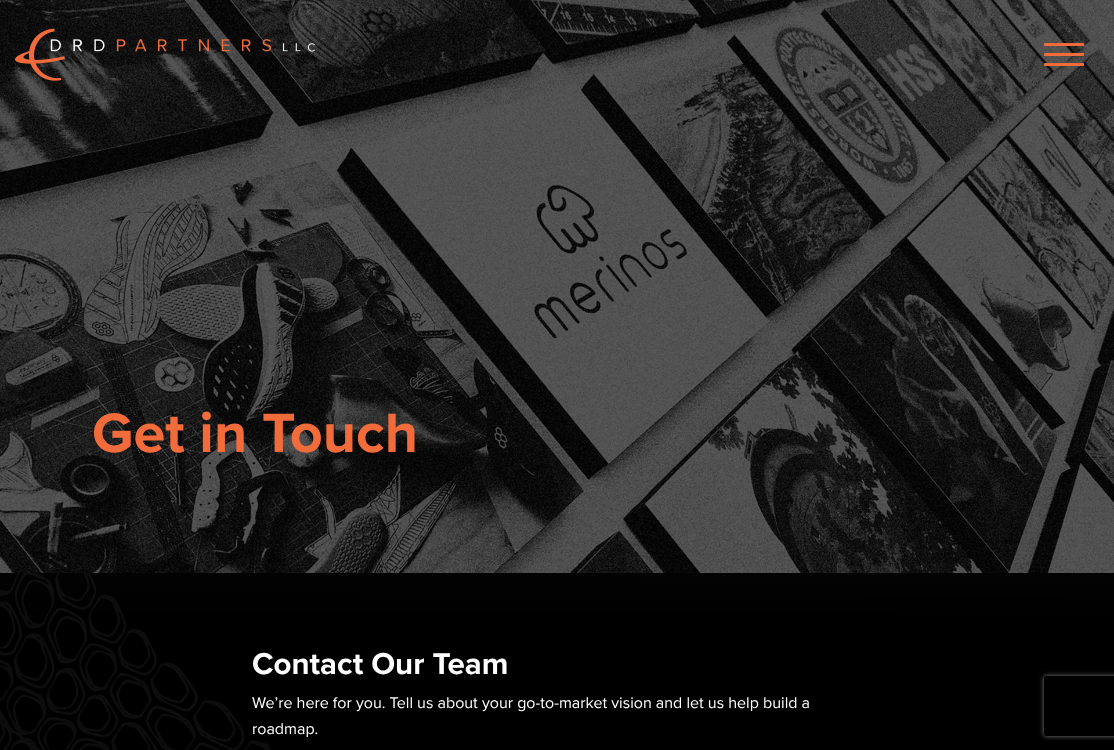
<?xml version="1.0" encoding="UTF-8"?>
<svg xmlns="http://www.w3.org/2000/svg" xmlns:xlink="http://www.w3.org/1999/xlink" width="1114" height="750">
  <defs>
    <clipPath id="clip1"><path d="M 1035 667 h 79 v 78 h -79 z m 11 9 h 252 c 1 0 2 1 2 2 v 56 c 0 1 -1 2 -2 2 h -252 c -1 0 -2 -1 -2 -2 v -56 c 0 -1 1 -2 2 -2 z" clip-rule="evenodd" /></clipPath>
  </defs>
  <rect width="100%" height="100%" fill="#ffffff" />
  <image x="0" y="573" width="1114" height="177" xlink:href="image1.png" />
  <image x="0" y="0" width="1114" height="573" xlink:href="image3.png" />
  <image x="15" y="28" width="300" height="53" xlink:href="image2.png" />
  <rect x="1044" y="63" width="40" height="3" rx="1" fill="#f26c3b" />
  <rect x="1044" y="43" width="40" height="3" rx="1" fill="#f26c3b" />
  <rect x="1044" y="53" width="40" height="3" rx="1" fill="#f26c3b" />
  <g clip-path="url(#clip1)">
    <rect x="1044" y="676" width="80" height="60" rx="2" fill="#808080" filter="blur(2.5px)" />
  </g>
  <text x="92" y="452" style="font-family: Proxima Nova; font-size: 57.5px; font-weight: bold; fill: #f26c3b">Get in Touch</text>
  <text x="252" y="674" style="font-family: Proxima Nova; font-size: 31.25px; font-weight: bold; fill: #ffffff">Contact Our Team</text>
  <text x="252" y="708" style="font-family: Proxima Nova; font-size: 16px; fill: #ffffff">We’re here for you. Tell us about your go-to-market vision and let us help build a</text>
  <text x="252" y="734" style="font-family: Proxima Nova; font-size: 16px; fill: #ffffff">roadmap.</text>
</svg>
